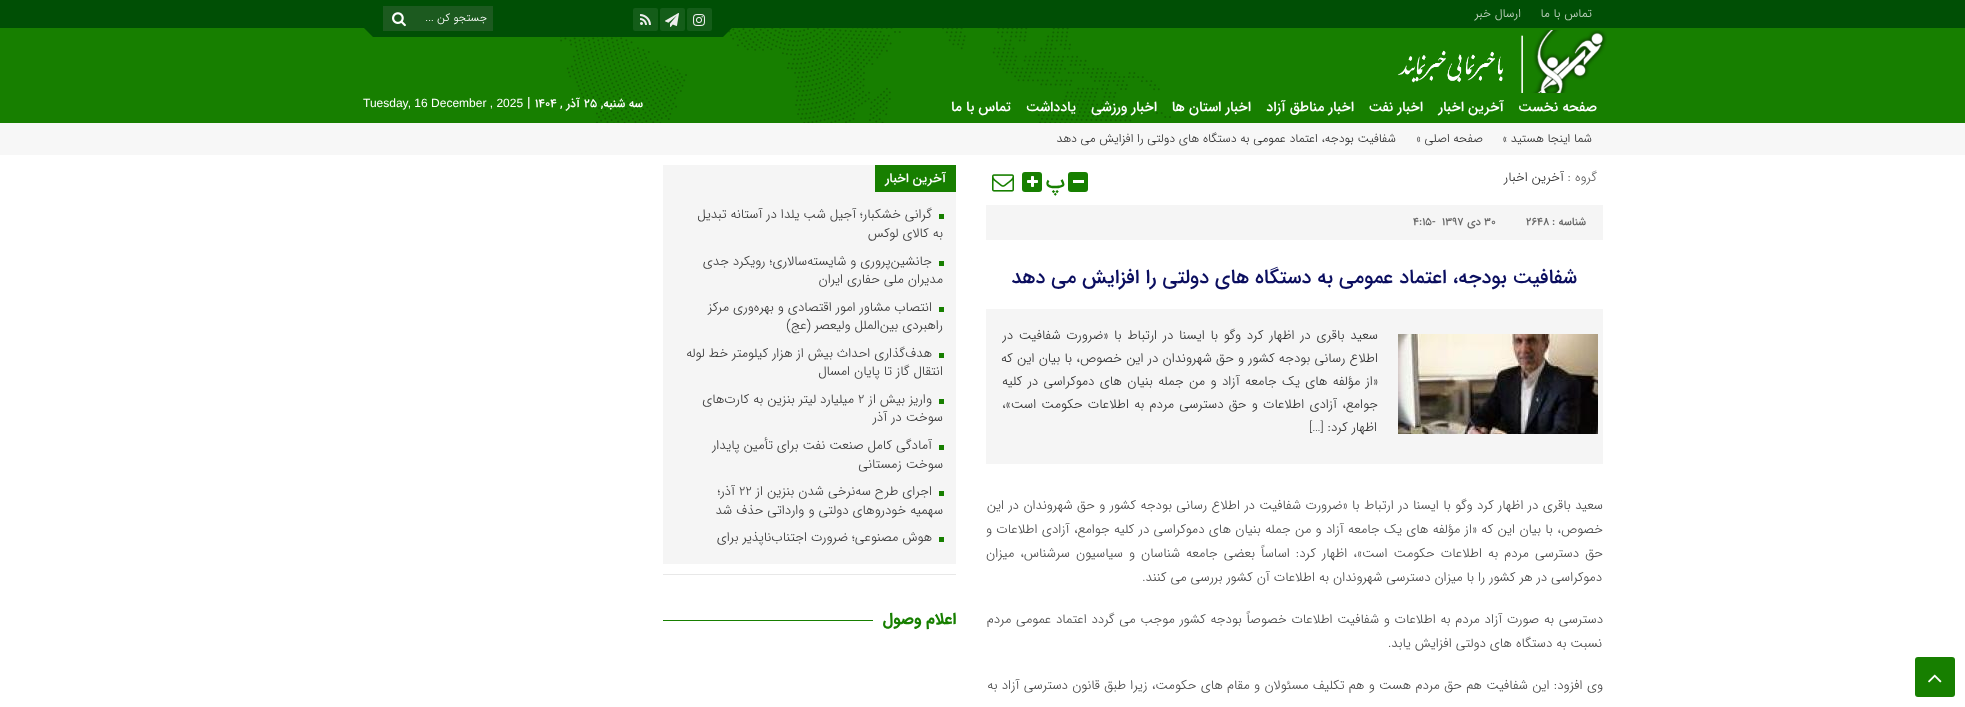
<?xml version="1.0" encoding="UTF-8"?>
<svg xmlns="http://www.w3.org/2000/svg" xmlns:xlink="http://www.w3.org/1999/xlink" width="1965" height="707">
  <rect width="100%" height="100%" fill="#ffffff" />
  <rect width="1965" height="28" fill="#004f05" />
  <rect y="28" width="1965" height="95" fill="#177f00" />
  <image x="560" y="28" width="611" height="95" xlink:href="image5.png" />
  <rect x="373" y="28" width="350" height="9" fill="#004f05" />
  <rect x="687" y="8" width="25" height="23" rx="2" fill="#145d19" />
  <image x="693" y="14" width="12" height="12" xlink:href="image1.png" />
  <rect x="660" y="8" width="25" height="23" rx="2" fill="#145d19" />
  <image x="665" y="13" width="14" height="14" xlink:href="image2.png" />
  <rect x="633" y="8" width="25" height="23" rx="2" fill="#145d19" />
  <image x="640" y="14" width="11" height="11" xlink:href="image3.png" />
  <rect x="383" y="6" width="110" height="25" fill="#1c5a1f" />
  <image x="392" y="12" width="14" height="15" xlink:href="image4.png" />
  <path d="M 723 25 h 12 l -12 12 z" fill="#004f05" />
  <path d="M 361 25 h 12 v 12 z" fill="#004f05" />
  <image x="1397" y="30" width="210" height="63" xlink:href="image6.png" />
  <rect y="123" width="1965" height="32" fill="#f7f7f7" />
  <rect x="1915" y="657" width="40" height="40" rx="3" fill="#177f00" />
  <image x="1928" y="674" width="14" height="9" xlink:href="image7.png" />
  <rect x="1068" y="172" width="20" height="20" rx="3" fill="#177f00" />
  <rect x="1073" y="180" width="11" height="3" fill="#ffffff" />
  <rect x="1022" y="172" width="20" height="20" rx="3" fill="#177f00" />
  <image x="1027" y="176" width="11" height="11" xlink:href="image8.png" />
  <image x="992" y="174" width="22" height="18" xlink:href="image9.png" />
  <rect x="986" y="205" width="617" height="35" fill="#f5f5f5" />
  <rect x="986" y="309" width="617" height="155" fill="#f5f5f5" />
  <image x="1398" y="334" width="200" height="100" xlink:href="image10.png" />
  <rect x="663" y="165" width="293" height="399" fill="#f5f5f5" />
  <rect x="875" y="165" width="81" height="27" fill="#177f00" />
  <rect x="939" y="214" width="5" height="5" fill="#177f00" />
  <rect x="939" y="261" width="5" height="5" fill="#177f00" />
  <rect x="939" y="307" width="5" height="5" fill="#177f00" />
  <rect x="939" y="353" width="5" height="5" fill="#177f00" />
  <rect x="939" y="399" width="5" height="5" fill="#177f00" />
  <rect x="939" y="445" width="5" height="5" fill="#177f00" />
  <rect x="939" y="491" width="5" height="5" fill="#177f00" />
  <rect x="939" y="537" width="5" height="5" fill="#177f00" />
  <rect x="663" y="574" width="293" height="1" fill="#e8e8e8" />
  <rect x="663" y="620" width="210" height="1" fill="#177f00" />
  <text x="1592" y="17" style="font-family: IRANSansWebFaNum; font-size: 12px; font-weight: 300; direction: rtl; fill: #c4d4c5">تماس با ما</text>
  <text x="1521" y="17" style="font-family: IRANSansWebFaNum; font-size: 12px; font-weight: 300; direction: rtl; fill: #c4d4c5">ارسال خبر</text>
  <text x="487" y="21" style="font-family: IRANSansWebFaNum; font-size: 11px; font-weight: 300; direction: rtl; fill: #ffffff">جستجو کن ...</text>
  <text x="1597" y="111" style="font-family: IRANSansWebFaNum; font-size: 14px; font-weight: 500; direction: rtl; fill: #ffffff">صفحه نخست</text>
  <text x="1504" y="111" style="font-family: IRANSansWebFaNum; font-size: 14px; font-weight: 500; direction: rtl; fill: #ffffff">آخرین اخبار</text>
  <text x="1423" y="111" style="font-family: IRANSansWebFaNum; font-size: 14px; font-weight: 500; direction: rtl; fill: #ffffff">اخبار نفت</text>
  <text x="1354" y="111" style="font-family: IRANSansWebFaNum; font-size: 14px; font-weight: 500; direction: rtl; fill: #ffffff">اخبار مناطق آزاد</text>
  <text x="1251" y="111" style="font-family: IRANSansWebFaNum; font-size: 14px; font-weight: 500; direction: rtl; fill: #ffffff">اخبار استان ها</text>
  <text x="1157" y="111" style="font-family: IRANSansWebFaNum; font-size: 14px; font-weight: 500; direction: rtl; fill: #ffffff">اخبار ورزشی</text>
  <text x="1076" y="111" style="font-family: IRANSansWebFaNum; font-size: 14px; font-weight: 500; direction: rtl; fill: #ffffff">یادداشت</text>
  <text x="1011" y="111" style="font-family: IRANSansWebFaNum; font-size: 14px; font-weight: 500; direction: rtl; fill: #ffffff">تماس با ما</text>
  <text x="643" y="107" style="font-family: IRANSansWebFaNum; font-size: 12px; font-weight: 500; direction: rtl; fill: #ffffff">سه شنبه,</text>
  <text x="584" y="107" style="font-family: IRANSansWebFaNum; font-size: 12px; font-weight: 500; fill: #ffffff">۲۵</text>
  <text x="580" y="107" style="font-family: IRANSansWebFaNum; font-size: 12px; font-weight: 500; direction: rtl; fill: #ffffff">آذر ,</text>
  <text x="535" y="107" style="font-family: IRANSansWebFaNum; font-size: 12px; font-weight: 500; fill: #ffffff">۱۴۰۴</text>
  <text x="527" y="107" style="font-family: IRANSansWebFaNum; font-size: 14px; font-weight: 500; fill: #ffffff">|</text>
  <text x="363" y="107" style="font-family: Liberation Sans; font-size: 12px; fill: #ffffff">Tuesday, 16 December , 2025</text>
  <text x="1592" y="142" style="font-family: IRANSansWebFaNum; font-size: 12px; font-weight: 300; direction: rtl; fill: #333333">شما اینجا هستید »</text>
  <text x="1483" y="142" style="font-family: IRANSansWebFaNum; font-size: 12px; font-weight: 300; direction: rtl; fill: #333333">صفحه اصلی »</text>
  <text x="1396" y="142" style="font-family: IRANSansWebFaNum; font-size: 12px; font-weight: 300; direction: rtl; fill: #333333">شفافیت بودجه، اعتماد عمومی به دستگاه های دولتی را افزایش می دهد</text>
  <text x="1597" y="181" style="font-family: IRANSansWebFaNum; font-size: 13px; font-weight: 300; direction: rtl; fill: #666666">گروه :</text>
  <text x="1564" y="181" style="font-family: IRANSansWebFaNum; font-size: 13px; font-weight: 300; direction: rtl; fill: #333333">آخرین اخبار</text>
  <text x="1065" y="188" style="font-family: IRANSansWebFaNum; font-size: 22px; font-weight: 500; direction: rtl; fill: #177f00">پ</text>
  <text x="1586" y="225" style="font-family: IRANSansWebFaNum; font-size: 11px; font-weight: 500; direction: rtl; fill: #666666">شناسه :</text>
  <text x="1526" y="225" style="font-family: IRANSansWebFaNum; font-size: 11px; font-weight: 500; fill: #666666">2648</text>
  <text x="1484" y="225" style="font-family: IRANSansWebFaNum; font-size: 11px; font-weight: 500; fill: #666666">30</text>
  <text x="1481" y="225" style="font-family: IRANSansWebFaNum; font-size: 11px; font-weight: 500; direction: rtl; fill: #666666">دی</text>
  <text x="1442" y="225" style="font-family: IRANSansWebFaNum; font-size: 11px; font-weight: 500; fill: #666666">1397</text>
  <text x="1413" y="225" style="font-family: IRANSansWebFaNum; font-size: 11px; font-weight: 500; fill: #666666">4:15-</text>
  <text x="1577" y="283" style="font-family: IRANSansWebFaNum; font-size: 20px; font-weight: 500; direction: rtl; fill: #0b0e5f">شفافیت بودجه، اعتماد عمومی به دستگاه های دولتی را افزایش می دهد</text>
  <text x="1378" y="339" word-spacing="1.75" style="font-family: IRANSansWebFaNum; font-size: 13px; font-weight: 300; direction: rtl; fill: #333333">سعید باقری در اظهار کرد وگو با ایسنا در ارتباط با «ضرورت شفافیت در</text>
  <text x="1378" y="362" word-spacing="0.25" style="font-family: IRANSansWebFaNum; font-size: 13px; font-weight: 300; direction: rtl; fill: #333333">اطلاع رسانی بودجه کشور و حق شهروندان در این خصوص، با بیان این که</text>
  <text x="1378" y="385" word-spacing="1.4" style="font-family: IRANSansWebFaNum; font-size: 13px; font-weight: 300; direction: rtl; fill: #333333">«از مؤلفه های یک جامعه آزاد و من جمله بنیان های دموکراسی در کلیه</text>
  <text x="1378" y="408" word-spacing="1.25" style="font-family: IRANSansWebFaNum; font-size: 13px; font-weight: 300; direction: rtl; fill: #333333">جوامع، آزادی اطلاعات و حق دسترسی مردم به اطلاعات حکومت است»،</text>
  <text x="1377" y="431" style="font-family: IRANSansWebFaNum; font-size: 13px; font-weight: 300; direction: rtl; fill: #333333">اظهار کرد: […]</text>
  <text x="1603" y="509" word-spacing="0.45" style="font-family: IRANSansWebFaNum; font-size: 13px; font-weight: 300; direction: rtl; fill: #4c4c4c">سعید باقری در اظهار کرد وگو با ایسنا در ارتباط با «ضرورت شفافیت در اطلاع رسانی بودجه کشور و حق شهروندان در این</text>
  <text x="1603" y="533" word-spacing="0.4" style="font-family: IRANSansWebFaNum; font-size: 13px; font-weight: 300; direction: rtl; fill: #4c4c4c">خصوص، با بیان این که «از مؤلفه های یک جامعه آزاد و من جمله بنیان های دموکراسی در کلیه جوامع، آزادی اطلاعات و</text>
  <text x="1603" y="557" word-spacing="2.1" style="font-family: IRANSansWebFaNum; font-size: 13px; font-weight: 300; direction: rtl; fill: #4c4c4c">حق دسترسی مردم به اطلاعات حکومت است»، اظهار کرد: اساساً بعضی جامعه شناسان و سیاسیون سرشناس، میزان</text>
  <text x="1602" y="581" style="font-family: IRANSansWebFaNum; font-size: 13px; font-weight: 300; direction: rtl; fill: #4c4c4c">دموکراسی در هر کشور را با میزان دسترسی شهروندان به اطلاعات آن کشور بررسی می کنند.</text>
  <text x="1603" y="623" word-spacing="0.75" style="font-family: IRANSansWebFaNum; font-size: 13px; font-weight: 300; direction: rtl; fill: #4c4c4c">دسترسی به صورت آزاد مردم به اطلاعات و شفافیت اطلاعات خصوصاً بودجه کشور موجب می گردد اعتماد عمومی مردم</text>
  <text x="1602" y="647" style="font-family: IRANSansWebFaNum; font-size: 13px; font-weight: 300; direction: rtl; fill: #4c4c4c">نسبت به دستگاه های دولتی افزایش یابد.</text>
  <text x="1603" y="689" word-spacing="0.3" style="font-family: IRANSansWebFaNum; font-size: 13px; font-weight: 300; direction: rtl; fill: #4c4c4c">وی افزود: این شفافیت هم حق مردم هست و هم تکلیف مسئولان و مقام های حکومت، زیرا طبق قانون دسترسی آزاد به</text>
  <text x="946" y="182" style="font-family: IRANSansWebFaNum; font-size: 13px; font-weight: 500; direction: rtl; fill: #ffffff">آخرین اخبار</text>
  <text x="932" y="218" style="font-family: IRANSansWebFaNum; font-size: 13px; font-weight: 300; direction: rtl; fill: #3b3b3b">گرانی خشکبار؛ آجیل شب یلدا در آستانه تبدیل</text>
  <text x="943" y="237" style="font-family: IRANSansWebFaNum; font-size: 13px; font-weight: 300; direction: rtl; fill: #3b3b3b">به کالای لوکس</text>
  <text x="932" y="265" style="font-family: IRANSansWebFaNum; font-size: 13px; font-weight: 300; direction: rtl; fill: #3b3b3b">جانشین‌پروری و شایسته‌سالاری؛ رویکرد جدی</text>
  <text x="943" y="283" style="font-family: IRANSansWebFaNum; font-size: 13px; font-weight: 300; direction: rtl; fill: #3b3b3b">مدیران ملی حفاری ایران</text>
  <text x="932" y="311" style="font-family: IRANSansWebFaNum; font-size: 13px; font-weight: 300; direction: rtl; fill: #3b3b3b">انتصاب مشاور امور اقتصادی و بهره‌وری مرکز</text>
  <text x="943" y="329" style="font-family: IRANSansWebFaNum; font-size: 13px; font-weight: 300; direction: rtl; fill: #3b3b3b">راهبردی بین‌الملل ولیعصر (عج)</text>
  <text x="932" y="357" style="font-family: IRANSansWebFaNum; font-size: 13px; font-weight: 300; direction: rtl; fill: #3b3b3b">هدف‌گذاری احداث بیش از هزار کیلومتر خط لوله</text>
  <text x="943" y="375" style="font-family: IRANSansWebFaNum; font-size: 13px; font-weight: 300; direction: rtl; fill: #3b3b3b">انتقال گاز تا پایان امسال</text>
  <text x="932" y="403" style="font-family: IRANSansWebFaNum; font-size: 13px; font-weight: 300; direction: rtl; fill: #3b3b3b">واریز بیش از</text>
  <text x="858" y="403" style="font-family: IRANSansWebFaNum; font-size: 13px; font-weight: 300; fill: #3b3b3b">۲</text>
  <text x="854" y="403" style="font-family: IRANSansWebFaNum; font-size: 13px; font-weight: 300; direction: rtl; fill: #3b3b3b">میلیارد لیتر بنزین به کارت‌های</text>
  <text x="943" y="421" style="font-family: IRANSansWebFaNum; font-size: 13px; font-weight: 300; direction: rtl; fill: #3b3b3b">سوخت در آذر</text>
  <text x="932" y="449" style="font-family: IRANSansWebFaNum; font-size: 13px; font-weight: 300; direction: rtl; fill: #3b3b3b">آمادگی کامل صنعت نفت برای تأمین پایدار</text>
  <text x="943" y="468" style="font-family: IRANSansWebFaNum; font-size: 13px; font-weight: 300; direction: rtl; fill: #3b3b3b">سوخت زمستانی</text>
  <text x="932" y="495" style="font-family: IRANSansWebFaNum; font-size: 13px; font-weight: 300; direction: rtl; fill: #3b3b3b">اجرای طرح سه‌نرخی شدن بنزین از</text>
  <text x="739" y="495" style="font-family: IRANSansWebFaNum; font-size: 13px; font-weight: 300; fill: #3b3b3b">۲۲</text>
  <text x="735" y="495" style="font-family: IRANSansWebFaNum; font-size: 13px; font-weight: 300; direction: rtl; fill: #3b3b3b">آذر؛</text>
  <text x="943" y="514" style="font-family: IRANSansWebFaNum; font-size: 13px; font-weight: 300; direction: rtl; fill: #3b3b3b">سهمیه خودروهای دولتی و وارداتی حذف شد</text>
  <text x="932" y="541" style="font-family: IRANSansWebFaNum; font-size: 13px; font-weight: 300; direction: rtl; fill: #3b3b3b">هوش مصنوعی؛ ضرورت اجتناب‌ناپذیر برای</text>
  <text x="956" y="624" style="font-family: IRANSansWebFaNum; font-size: 16px; font-weight: bold; direction: rtl; fill: #177f00">اعلام وصول</text>
</svg>
